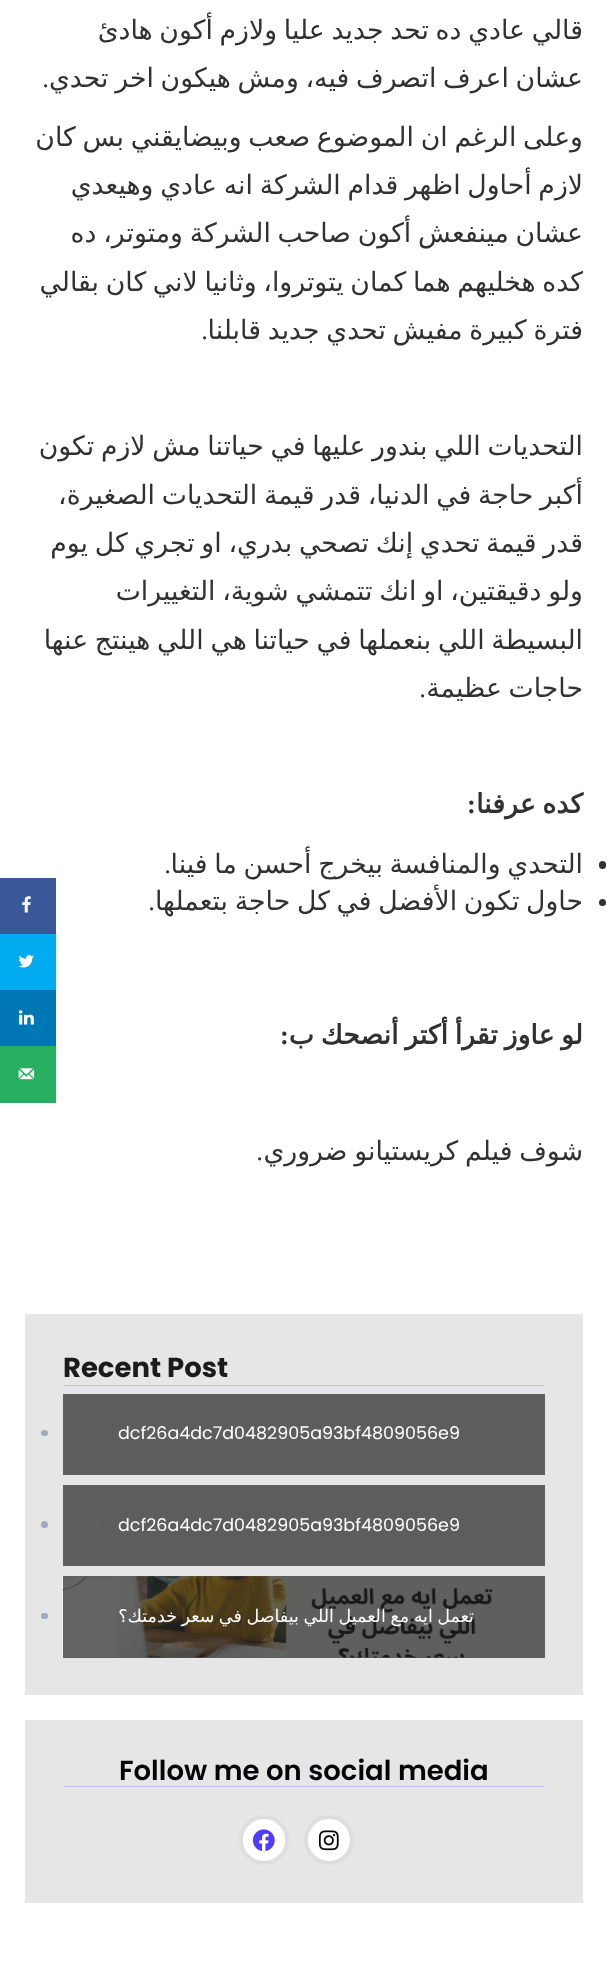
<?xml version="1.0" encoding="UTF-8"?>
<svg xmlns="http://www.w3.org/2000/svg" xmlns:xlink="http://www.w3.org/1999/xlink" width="607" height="1978">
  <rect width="100%" height="100%" fill="#ffffff" />
  <rect x="599" y="861" width="7" height="8" rx="3.5" fill="#313131" />
  <circle cx="602.5" cy="902.5" r="3.5" fill="#313131" />
  <rect x="25" y="1314" width="558" height="381" fill="#e6e6e6" />
  <rect x="63" y="1576" width="482" height="82" fill="#5d5d5d" />
  <rect x="63" y="1485" width="482" height="81" fill="#5d5d5d" />
  <rect x="63" y="1394" width="482" height="81" fill="#5d5d5d" />
  <rect x="63" y="1385" width="482" height="1" fill="#c5c1eb" />
  <image x="91" y="1424" width="9" height="17" xlink:href="image1.png" />
  <rect x="41" y="1430" width="7" height="6" rx="3" fill="#a3a8bf" />
  <image x="91" y="1516" width="9" height="16" xlink:href="image2.png" />
  <circle cx="44.5" cy="1524.5" r="3.5" fill="#a3a8bf" />
  <image x="62" y="1576" width="483" height="82" xlink:href="image3.png" />
  <rect x="41" y="1613" width="7" height="6" rx="3" fill="#a3a8bf" />
  <rect x="25" y="1720" width="558" height="183" fill="#e6e6e6" />
  <rect x="63" y="1786" width="482" height="1" fill="#c5c1eb" />
  <circle cx="329" cy="1840" r="25" fill="#ffffff" />
  <circle cx="329" cy="1840" r="23" fill="none" stroke="#020101" stroke-opacity="0.13" stroke-width="4" />
  <image x="318" y="1830" width="21" height="21" xlink:href="image4.png" />
  <circle cx="264" cy="1840" r="25" fill="#ffffff" />
  <circle cx="264" cy="1840" r="23" fill="none" stroke="#020101" stroke-opacity="0.13" stroke-width="4" />
  <image x="252" y="1829" width="23" height="22" xlink:href="image5.png" />
  <rect y="878" width="56" height="56" fill="#3a579a" />
  <image x="22" y="896" width="9" height="17" xlink:href="image6.png" />
  <rect y="934" width="56" height="56" fill="#00abf0" />
  <image x="18" y="955" width="16" height="13" xlink:href="image7.png" />
  <rect y="990" width="56" height="56" fill="#0077b5" />
  <image x="18" y="1010" width="16" height="15" xlink:href="image8.png" />
  <rect y="1046" width="56" height="57" fill="#27ae60" />
  <image x="18" y="1068" width="17" height="12" xlink:href="image9.png" />
  <text x="583" y="39" word-spacing="-1.75" style="font-family: DejaVu Sans; font-size: 26.7px; direction: rtl; fill: #313131">قالي عادي ده تحد جديد عليا ولازم أكون هادئ</text>
  <text x="583" y="87" word-spacing="-1.75" style="font-family: DejaVu Sans; font-size: 26.7px; direction: rtl; fill: #313131">عشان اعرف اتصرف فيه، ومش هيكون اخر تحدي</text>
  <text x="49" y="87" style="font-family: Liberation Serif; font-size: 26.7px; direction: rtl; fill: #313131">.</text>
  <text x="583" y="146" word-spacing="-1.75" style="font-family: DejaVu Sans; font-size: 26.7px; direction: rtl; fill: #313131">وعلى الرغم ان الموضوع صعب وبيضايقني بس كان</text>
  <text x="583" y="194" word-spacing="-1.75" style="font-family: DejaVu Sans; font-size: 26.7px; direction: rtl; fill: #313131">لازم أحاول اظهر قدام الشركة انه عادي وهيعدي</text>
  <text x="583" y="242" word-spacing="-1.75" style="font-family: DejaVu Sans; font-size: 26.7px; direction: rtl; fill: #313131">عشان مينفعش أكون صاحب الشركة ومتوتر، ده</text>
  <text x="583" y="291" word-spacing="-1.75" style="font-family: DejaVu Sans; font-size: 26.7px; direction: rtl; fill: #313131">كده هخليهم هما كمان يتوتروا، وثانيا لاني كان بقالي</text>
  <text x="583" y="339" word-spacing="-1.75" style="font-family: DejaVu Sans; font-size: 26.7px; direction: rtl; fill: #313131">فترة كبيرة مفيش تحدي جديد قابلنا</text>
  <text x="208" y="339" style="font-family: Liberation Serif; font-size: 26.7px; direction: rtl; fill: #313131">.</text>
  <text x="583" y="455" word-spacing="-1.75" style="font-family: DejaVu Sans; font-size: 26.7px; direction: rtl; fill: #313131">التحديات اللي بندور عليها في حياتنا مش لازم تكون</text>
  <text x="583" y="504" word-spacing="-1.75" style="font-family: DejaVu Sans; font-size: 26.7px; direction: rtl; fill: #313131">أكبر حاجة في الدنيا، قدر قيمة التحديات الصغيرة،</text>
  <text x="583" y="552" word-spacing="-1.75" style="font-family: DejaVu Sans; font-size: 26.7px; direction: rtl; fill: #313131">قدر قيمة تحدي إنك تصحي بدري، او تجري كل يوم</text>
  <text x="583" y="600" word-spacing="-1.75" style="font-family: DejaVu Sans; font-size: 26.7px; direction: rtl; fill: #313131">ولو دقيقتين، او انك تتمشي شوية، التغييرات</text>
  <text x="583" y="649" word-spacing="-1.75" style="font-family: DejaVu Sans; font-size: 26.7px; direction: rtl; fill: #313131">البسيطة اللي بنعملها في حياتنا هي اللي هينتج عنها</text>
  <text x="583" y="697" word-spacing="-1.75" style="font-family: DejaVu Sans; font-size: 26.7px; direction: rtl; fill: #313131">حاجات عظيمة</text>
  <text x="426" y="697" style="font-family: Liberation Serif; font-size: 26.7px; direction: rtl; fill: #313131">.</text>
  <text x="583" y="813" word-spacing="-1.75" style="font-family: DejaVu Sans; font-size: 26.7px; font-weight: bold; direction: rtl; fill: #313131">كده عرفنا</text>
  <text x="476" y="813" style="font-family: Liberation Serif; font-size: 26.7px; font-weight: bold; direction: rtl; fill: #313131">:</text>
  <text x="583" y="873" word-spacing="-1.75" style="font-family: DejaVu Sans; font-size: 26.7px; direction: rtl; fill: #313131">التحدي والمنافسة بيخرج أحسن ما فينا</text>
  <text x="171" y="873" style="font-family: Liberation Serif; font-size: 26.7px; direction: rtl; fill: #313131">.</text>
  <text x="583" y="910" word-spacing="-1.75" style="font-family: DejaVu Sans; font-size: 26.7px; direction: rtl; fill: #313131">حاول تكون الأفضل في كل حاجة بتعملها</text>
  <text x="155" y="910" style="font-family: Liberation Serif; font-size: 26.7px; direction: rtl; fill: #313131">.</text>
  <text x="583" y="1044" word-spacing="-1.75" style="font-family: DejaVu Sans; font-size: 26.7px; font-weight: bold; direction: rtl; fill: #313131">لو عاوز تقرأ أكتر أنصحك ب</text>
  <text x="289" y="1044" style="font-family: Liberation Serif; font-size: 26.7px; font-weight: bold; direction: rtl; fill: #313131">:</text>
  <text x="583" y="1160" word-spacing="-1.75" style="font-family: DejaVu Sans; font-size: 26.7px; direction: rtl; fill: #313131">شوف فيلم كريستيانو ضروري</text>
  <text x="263" y="1160" style="font-family: Liberation Serif; font-size: 26.7px; direction: rtl; fill: #313131">.</text>
  <text x="63" y="1377" style="font-family: Poppins; font-size: 27.5px; font-weight: bold; fill: #1b1a1d">Recent Post</text>
  <text x="118" y="1439" style="font-family: Poppins; font-size: 17.5px; fill: #ffffff">dcf26a4dc7d0482905a93bf4809056e9</text>
  <text x="118" y="1531" style="font-family: Poppins; font-size: 17.5px; fill: #ffffff">dcf26a4dc7d0482905a93bf4809056e9</text>
  <text x="474" y="1622" word-spacing="-1" style="font-family: DejaVu Sans; font-size: 17.5px; direction: rtl; fill: #ffffff">تعمل ايه مع العميل اللي بيفاصل في سعر خدمتك؟</text>
  <text x="119" y="1780" style="font-family: Poppins; font-size: 27.5px; font-weight: 600; fill: #050408">Follow me on social media</text>
</svg>
